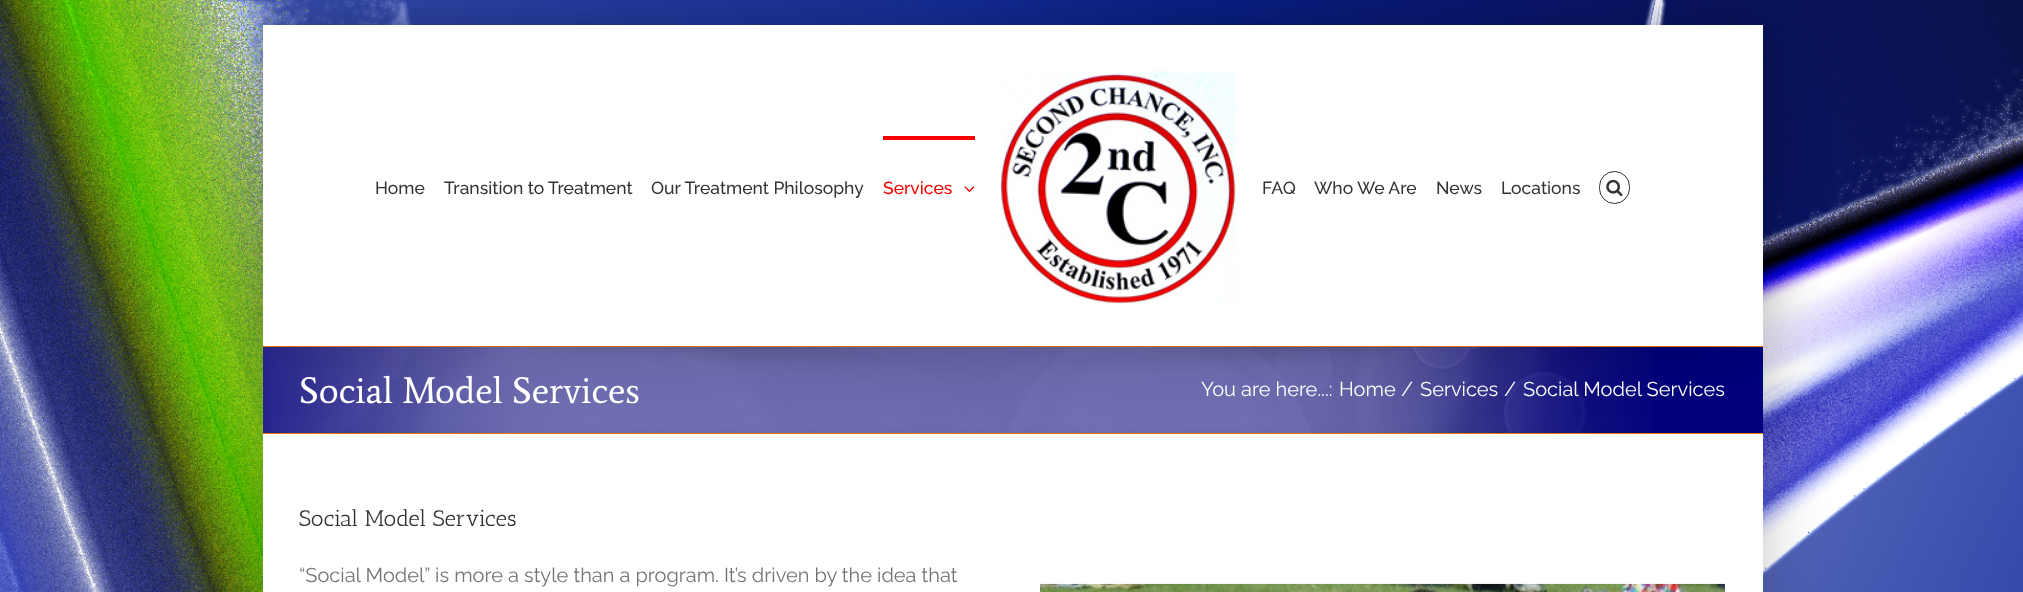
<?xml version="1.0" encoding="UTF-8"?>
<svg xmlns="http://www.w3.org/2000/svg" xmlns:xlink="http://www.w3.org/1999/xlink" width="2023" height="592">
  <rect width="100%" height="100%" fill="#ffffff" />
  <image x="0" y="0" width="2023" height="592" xlink:href="image1.png" />
  <rect x="261" y="24" width="1503" height="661" fill="#000000" fill-opacity="0.22" filter="blur(31px)" />
  <rect x="263" y="347" width="1500" height="86" fill="#03017c" />
  <image x="262" y="346" width="1391" height="88" xlink:href="image5.png" />
  <rect x="263" y="346" width="1500" height="1" fill="#ed7a00" />
  <rect x="263" y="433" width="1500" height="1" fill="#ed7a00" />
  <rect x="263" y="434" width="1500" height="158" fill="#ffffff" />
  <rect x="265" y="40" width="1495" height="316" fill="#000000" fill-opacity="0.14" filter="blur(31px)" />
  <rect x="263" y="25" width="1500" height="321" fill="#ffffff" />
  <rect x="883" y="136" width="92" height="4" fill="#f70000" />
  <image x="964" y="186" width="11" height="6" xlink:href="image2.png" />
  <image x="999" y="70" width="242" height="236" xlink:href="image3.png" />
  <rect x="1599.5" y="171.5" width="30" height="32" rx="15" fill="none" stroke="#333333" />
  <image x="1606" y="179" width="17" height="18" xlink:href="image4.png" />
  <image x="1040" y="583" width="685" height="9" xlink:href="image6.png" />
  <text x="375" y="194" style="font-family: Raleway; font-size: 17.5px; font-weight: 500; fill: #333333">Home</text>
  <text x="444" y="194" style="font-family: Raleway; font-size: 17.5px; font-weight: 500; fill: #333333">Transition to Treatment</text>
  <text x="651" y="194" style="font-family: Raleway; font-size: 17.5px; font-weight: 500; fill: #333333">Our Treatment Philosophy</text>
  <text x="883" y="194" style="font-family: Raleway; font-size: 17.5px; font-weight: 500; fill: #f70000">Services</text>
  <text x="1262" y="194" style="font-family: Raleway; font-size: 17.5px; font-weight: 500; fill: #333333">FAQ</text>
  <text x="1314" y="194" style="font-family: Raleway; font-size: 17.5px; font-weight: 500; fill: #333333">Who We Are</text>
  <text x="1436" y="194" style="font-family: Raleway; font-size: 17.5px; font-weight: 500; fill: #333333">News</text>
  <text x="1501" y="194" style="font-family: Raleway; font-size: 17.5px; font-weight: 500; fill: #333333">Locations</text>
  <text x="299" y="403" style="font-family: Average; font-size: 37.5px; fill: #ffffff">Social Model Services</text>
  <text x="1201" y="396" style="font-family: Raleway; font-size: 20px; fill: #ffffff">You are here...:</text>
  <text x="1339" y="396" style="font-family: Raleway; font-size: 20px; fill: #ffffff">Home</text>
  <text x="1401" y="396" style="font-family: Raleway; font-size: 20px; fill: #ffffff">/</text>
  <text x="1420" y="396" style="font-family: Raleway; font-size: 20px; fill: #ffffff">Services</text>
  <text x="1504" y="396" style="font-family: Raleway; font-size: 20px; fill: #ffffff">/</text>
  <text x="1523" y="396" style="font-family: Raleway; font-size: 20px; fill: #ffffff">Social Model Services</text>
  <text x="299" y="526" style="font-family: Antic Slab; font-size: 22.5px; fill: #333333">Social Model Services</text>
  <text x="299" y="582" style="font-family: Raleway; font-size: 20px; fill: #747474">“Social Model” is more a style than a program. It’s driven by the idea that</text>
</svg>
